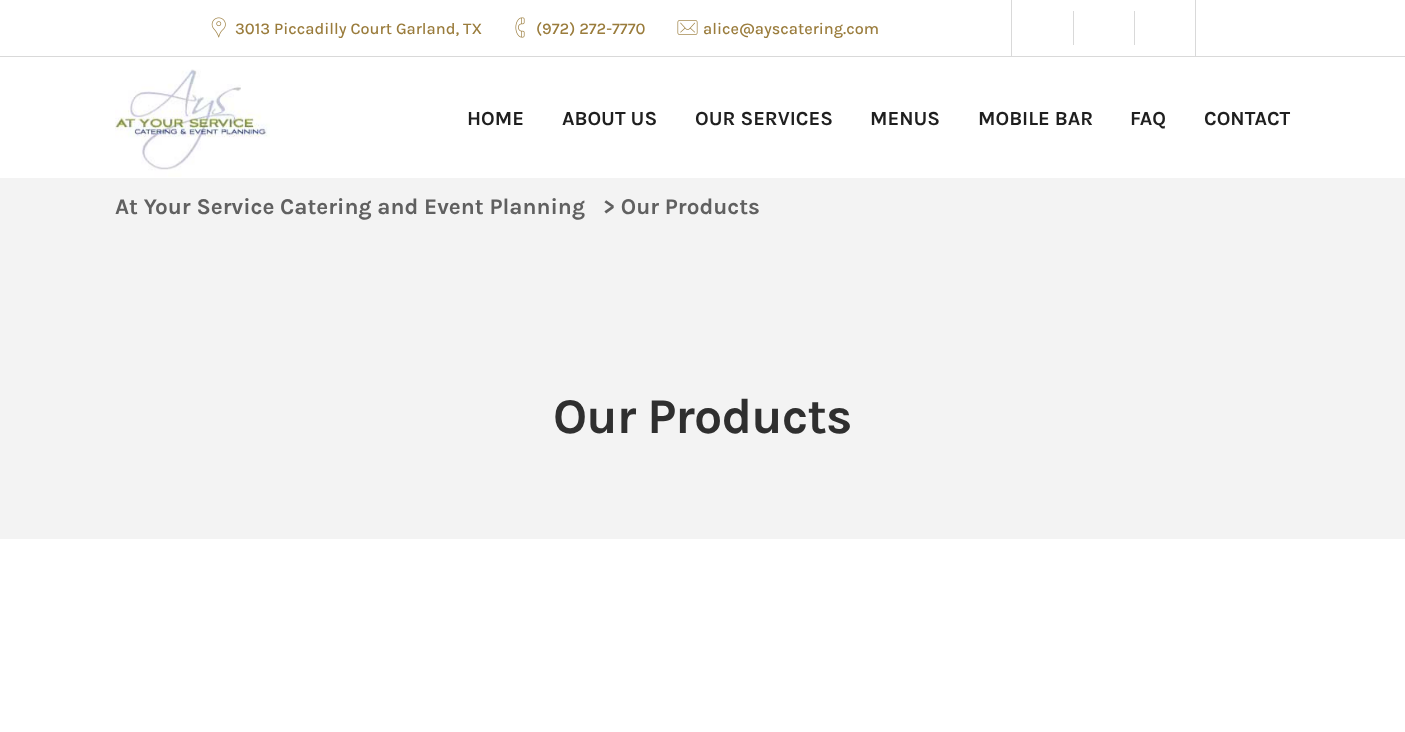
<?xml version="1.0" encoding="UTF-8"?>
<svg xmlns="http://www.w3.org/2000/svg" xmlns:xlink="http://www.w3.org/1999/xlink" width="1405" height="732">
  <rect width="100%" height="100%" fill="#ffffff" />
  <rect y="56" width="1405" height="1" fill="#d9d9d9" />
  <image x="211" y="17" width="15" height="21" xlink:href="image1.png" />
  <image x="515" y="17" width="10" height="21" xlink:href="image2.png" />
  <image x="677" y="20" width="21" height="15" xlink:href="image3.png" />
  <rect x="1195" width="1" height="56" fill="#d9d9d9" />
  <rect x="1011" width="1" height="56" fill="#d9d9d9" />
  <rect x="1073" y="11" width="1" height="34" fill="#d9d9d9" />
  <rect x="1134" y="11" width="1" height="34" fill="#d9d9d9" />
  <image x="115" y="69" width="155" height="108" xlink:href="image4.png" />
  <rect y="178" width="1405" height="361" fill="#f3f3f3" />
  <text x="235" y="34" style="font-family: Karla; font-size: 16.25px; font-weight: 500; fill: #9a7c3c">3013 Piccadilly Court Garland, TX</text>
  <text x="536" y="34" style="font-family: Karla; font-size: 16.25px; font-weight: 500; fill: #9a7c3c">(972) 272-7770</text>
  <text x="703" y="34" style="font-family: Karla; font-size: 16.25px; font-weight: 500; fill: #9a7c3c">alice@ayscatering.com</text>
  <text x="467" y="125" style="font-family: Karla; font-size: 20px; font-weight: bold; fill: #1f1f1f">HOME</text>
  <text x="562" y="125" style="font-family: Karla; font-size: 20px; font-weight: bold; fill: #1f1f1f">ABOUT US</text>
  <text x="695" y="125" style="font-family: Karla; font-size: 20px; font-weight: bold; fill: #1f1f1f">OUR SERVICES</text>
  <text x="870" y="125" style="font-family: Karla; font-size: 20px; font-weight: bold; fill: #1f1f1f">MENUS</text>
  <text x="978" y="125" style="font-family: Karla; font-size: 20px; font-weight: bold; fill: #1f1f1f">MOBILE BAR</text>
  <text x="1130" y="125" style="font-family: Karla; font-size: 20px; font-weight: bold; fill: #1f1f1f">FAQ</text>
  <text x="1204" y="125" style="font-family: Karla; font-size: 20px; font-weight: bold; fill: #1f1f1f">CONTACT</text>
  <text x="115" y="214" style="font-family: Karla; font-size: 22.5px; font-weight: bold; fill: #606060">At Your Service Catering and Event Planning</text>
  <text x="603" y="214" style="font-family: Karla; font-size: 22.5px; font-weight: bold; fill: #606060">&gt; Our Products</text>
  <text x="553" y="433" style="font-family: Karla; font-size: 50px; font-weight: bold; letter-spacing: -0.9px; fill: #2f2f2f">Our Products</text>
</svg>
